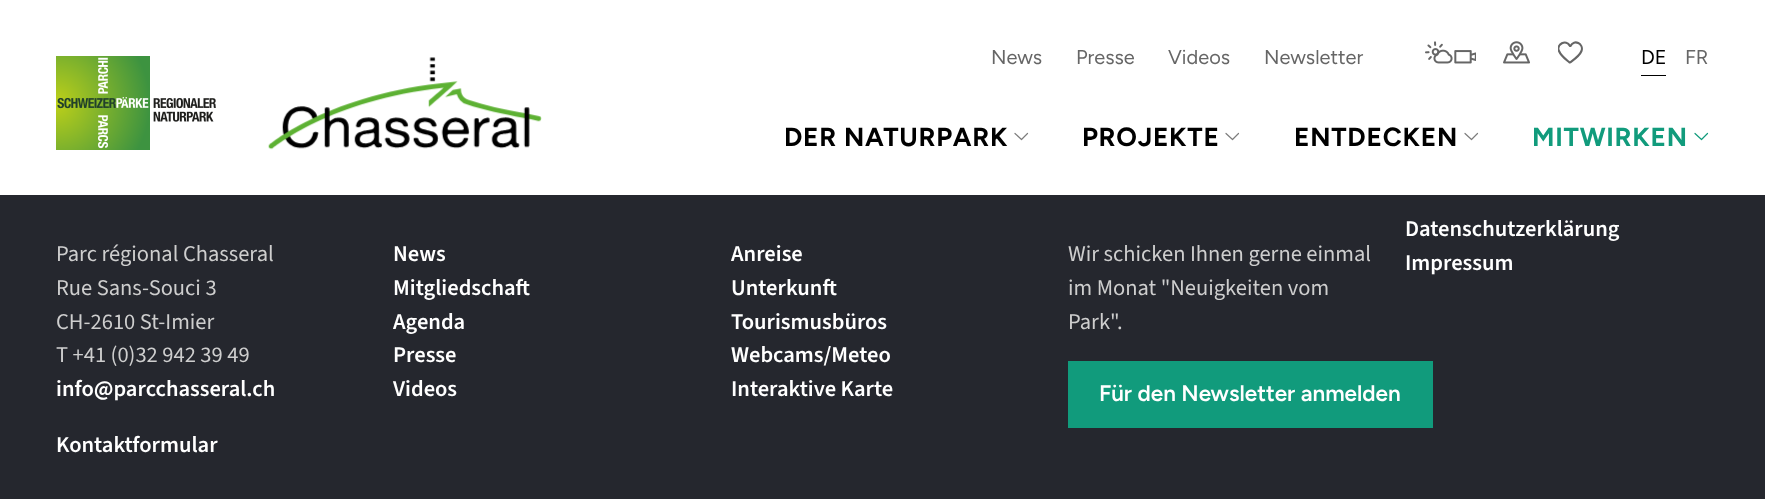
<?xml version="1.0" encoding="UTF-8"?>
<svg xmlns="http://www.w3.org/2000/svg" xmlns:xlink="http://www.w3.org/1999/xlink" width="1765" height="499">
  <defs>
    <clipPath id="clip1"><rect x="1558" y="41" width="25" height="23" /></clipPath>
  </defs>
  <rect width="100%" height="100%" fill="#25272e" />
  <rect width="1765" height="195" fill="#ffffff" />
  <image x="56" y="56" width="160" height="94" xlink:href="image1.png" />
  <image x="268" y="57" width="274" height="93" xlink:href="image2.png" />
  <image x="1425" y="41" width="51" height="23" xlink:href="image3.png" />
  <image x="1503" y="41" width="27" height="23" xlink:href="image4.png" />
  <g clip-path="url(#clip1)">
    <path d="M 1569.5 62.5 c -3.5 -3 -8.5 -6.5 -10.5 -11.5 c -3 -6.5 7 -12.5 11 -5 h 0.5 c 3.5 -7.5 13.5 -2 11 5 c -2 5 -7.5 8.5 -11.5 11.5 z" fill="none" stroke="#666666" stroke-width="2.1" stroke-linecap="round" stroke-linejoin="round" />
  </g>
  <rect x="1641" y="75" width="25" height="1" fill="#000000" />
  <path d="M 1027.5 133.5 l -6 6 l -6.5 -6" fill="none" stroke="#7d7d7d" stroke-width="1.2" stroke-linecap="round" stroke-linejoin="round" />
  <path d="M 1238.5 133.5 l -6 6 l -6.5 -6" fill="none" stroke="#7d7d7d" stroke-width="1.2" stroke-linecap="round" stroke-linejoin="round" />
  <path d="M 1477.5 133.5 l -6 6 l -6.5 -6" fill="none" stroke="#7d7d7d" stroke-width="1.2" stroke-linecap="round" stroke-linejoin="round" />
  <path d="M 1707.5 133.5 l -6 6 l -6.5 -6" fill="none" stroke="#119b7c" stroke-width="1.2" stroke-linecap="round" stroke-linejoin="round" />
  <rect x="1068" y="361" width="365" height="67" fill="#119b7c" />
  <text x="991" y="64" style="font-family: Figtree; font-size: 20px; fill: #666666">News</text>
  <text x="1076" y="64" style="font-family: Figtree; font-size: 20px; fill: #666666">Presse</text>
  <text x="1168" y="64" style="font-family: Figtree; font-size: 20px; fill: #666666">Videos</text>
  <text x="1264" y="64" style="font-family: Figtree; font-size: 20px; fill: #666666">Newsletter</text>
  <text x="1641" y="64" style="font-family: Figtree; font-size: 20px; fill: #000000">DE</text>
  <text x="1685" y="64" style="font-family: Figtree; font-size: 20px; fill: #666666">FR</text>
  <text x="784" y="146" style="font-family: Figtree; font-size: 26.25px; font-weight: bold; letter-spacing: 0.75px; fill: #000000">DER NATURPARK</text>
  <text x="1082" y="146" style="font-family: Figtree; font-size: 26.25px; font-weight: bold; letter-spacing: 0.75px; fill: #000000">PROJEKTE</text>
  <text x="1294" y="146" style="font-family: Figtree; font-size: 26.25px; font-weight: bold; letter-spacing: 0.75px; fill: #000000">ENTDECKEN</text>
  <text x="1532" y="146" style="font-family: Figtree; font-size: 26.25px; font-weight: bold; letter-spacing: 0.75px; fill: #119b7c">MITWIRKEN</text>
  <text x="56" y="261" style="font-family: 'Source Sans 3'; font-size: 22.5px; fill: #cecece">Parc régional Chasseral</text>
  <text x="56" y="295" style="font-family: 'Source Sans 3'; font-size: 22.5px; fill: #cecece">Rue Sans-Souci 3</text>
  <text x="56" y="329" style="font-family: 'Source Sans 3'; font-size: 22.5px; fill: #cecece">CH-2610 St-Imier</text>
  <text x="56" y="362" style="font-family: 'Source Sans 3'; font-size: 22.5px; fill: #cecece">T +41 (0)32 942 39 49</text>
  <text x="56" y="396" style="font-family: 'Source Sans 3'; font-size: 22.5px; font-weight: 600; fill: #ffffff">info@parcchasseral.ch</text>
  <text x="56" y="452" style="font-family: 'Source Sans 3'; font-size: 22.5px; font-weight: 600; fill: #ffffff">Kontaktformular</text>
  <text x="393" y="261" style="font-family: 'Source Sans 3'; font-size: 22.5px; font-weight: 600; fill: #ffffff">News</text>
  <text x="393" y="295" style="font-family: 'Source Sans 3'; font-size: 22.5px; font-weight: 600; fill: #ffffff">Mitgliedschaft</text>
  <text x="393" y="329" style="font-family: 'Source Sans 3'; font-size: 22.5px; font-weight: 600; fill: #ffffff">Agenda</text>
  <text x="393" y="362" style="font-family: 'Source Sans 3'; font-size: 22.5px; font-weight: 600; fill: #ffffff">Presse</text>
  <text x="393" y="396" style="font-family: 'Source Sans 3'; font-size: 22.5px; font-weight: 600; fill: #ffffff">Videos</text>
  <text x="731" y="261" style="font-family: 'Source Sans 3'; font-size: 22.5px; font-weight: 600; fill: #ffffff">Anreise</text>
  <text x="731" y="295" style="font-family: 'Source Sans 3'; font-size: 22.5px; font-weight: 600; fill: #ffffff">Unterkunft</text>
  <text x="731" y="329" style="font-family: 'Source Sans 3'; font-size: 22.5px; font-weight: 600; fill: #ffffff">Tourismusbüros</text>
  <text x="731" y="362" style="font-family: 'Source Sans 3'; font-size: 22.5px; font-weight: 600; fill: #ffffff">Webcams/Meteo</text>
  <text x="731" y="396" style="font-family: 'Source Sans 3'; font-size: 22.5px; font-weight: 600; fill: #ffffff">Interaktive Karte</text>
  <text x="1068" y="261" style="font-family: 'Source Sans 3'; font-size: 22.5px; fill: #cecece">Wir schicken Ihnen gerne einmal</text>
  <text x="1068" y="295" style="font-family: 'Source Sans 3'; font-size: 22.5px; fill: #cecece">im Monat "Neuigkeiten vom</text>
  <text x="1068" y="329" style="font-family: 'Source Sans 3'; font-size: 22.5px; fill: #cecece">Park".</text>
  <text x="1099" y="401" style="font-family: Figtree; font-size: 22.5px; font-weight: 600; fill: #ffffff">Für den Newsletter anmelden</text>
  <text x="1405" y="236" style="font-family: 'Source Sans 3'; font-size: 22.5px; font-weight: 600; fill: #ffffff">Datenschutzerklärung</text>
  <text x="1405" y="270" style="font-family: 'Source Sans 3'; font-size: 22.5px; font-weight: 600; fill: #ffffff">Impressum</text>
</svg>
